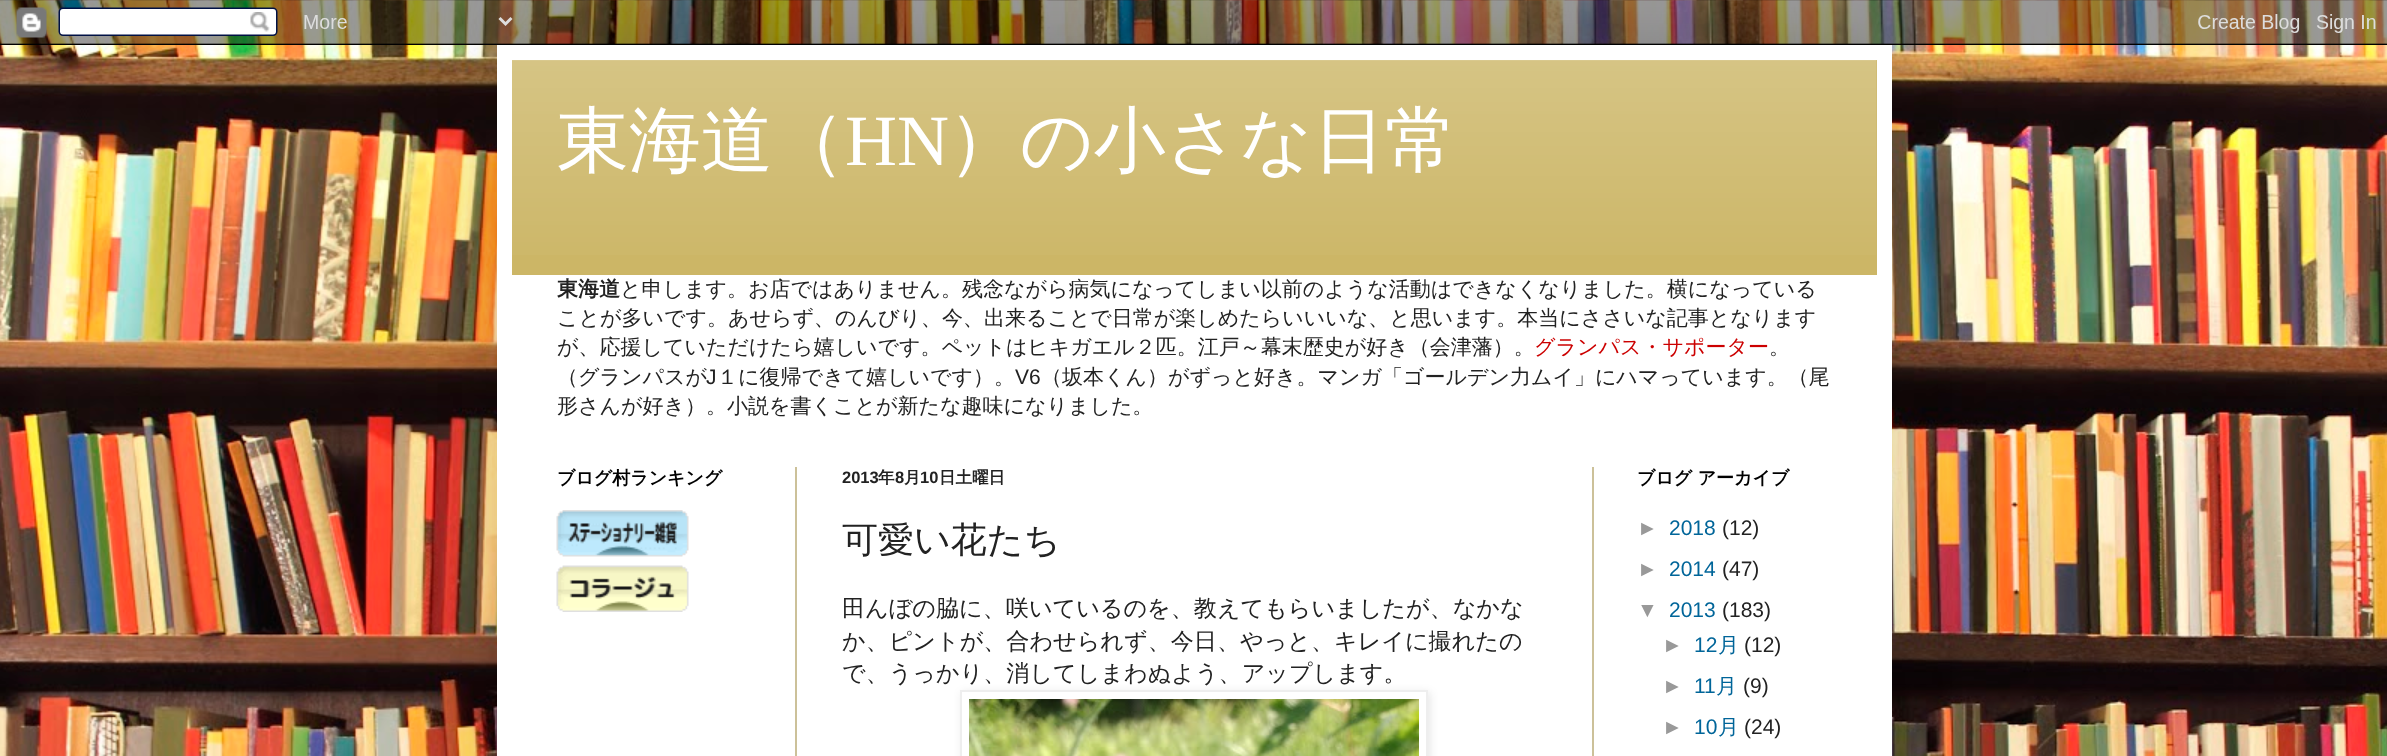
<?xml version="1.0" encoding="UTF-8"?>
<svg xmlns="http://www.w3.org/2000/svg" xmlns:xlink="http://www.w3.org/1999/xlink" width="2387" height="756">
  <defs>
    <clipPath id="clip1"><path d="M 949 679 h 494 v 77 h -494 z m 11 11 h 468 v 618 h -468 z" clip-rule="evenodd" /></clipPath>
  </defs>
  <rect width="100%" height="100%" fill="#ffffff" />
  <image x="0" y="0" width="2387" height="756" xlink:href="image1.png" />
  <rect x="497" y="45" width="1395" height="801" fill="#000000" fill-opacity="0.15" filter="blur(30px)" />
  <image x="0" y="0" width="2387" height="45" xlink:href="image2.png" />
  <rect x="497" y="45" width="1395" height="711" fill="#ffffff" />
  <rect x="512" y="60" width="1365" height="215" fill="#ccb666" />
  <image x="512" y="60" width="1365" height="195" xlink:href="image3.png" />
  <rect x="795" y="467" width="2" height="289" fill="#ccc199" />
  <rect x="1592" y="467" width="2" height="289" fill="#ccc199" />
  <image x="556" y="510" width="133" height="47" xlink:href="image4.png" />
  <image x="556" y="565" width="133" height="47" xlink:href="image5.png" />
  <g clip-path="url(#clip1)">
    <rect x="962" y="692" width="468" height="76" fill="#000000" fill-opacity="0.1" filter="blur(4px)" />
  </g>
  <rect x="961" y="691" width="466" height="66" fill="none" stroke="#eeeeee" stroke-width="2" />
  <image x="969" y="699" width="450" height="57" xlink:href="image6.png" />
  <text x="557" y="165" style="font-family: WenQuanYi Zen Hei; font-size: 72px; font-weight: 500; fill: #ffffff">東海道（</text>
  <text x="845" y="165" style="font-family: Liberation Serif; font-size: 72px; fill: #ffffff">HN</text>
  <text x="948" y="165" style="font-family: WenQuanYi Zen Hei; font-size: 72px; font-weight: 500; fill: #ffffff">）の小さな日常</text>
  <text x="557" y="296" style="font-family: WenQuanYi Zen Hei; font-size: 21px; font-weight: bold; fill: #222222">東海道</text>
  <text x="620" y="296" style="font-family: WenQuanYi Zen Hei; font-size: 21px; font-weight: 500; fill: #222222">と申します。お店ではありません。残念ながら病気になってしまい以前のような活動はできなくなりました。横になっている</text>
  <text x="557" y="325" style="font-family: WenQuanYi Zen Hei; font-size: 21px; font-weight: 500; fill: #222222">ことが多いです。あせらず、のんびり、今、出来ることで日常が楽しめたらいいいな、と思います。本当にささいな記事となります</text>
  <text x="557" y="354" style="font-family: WenQuanYi Zen Hei; font-size: 21px; font-weight: 500; fill: #222222">が、応援していただけたら嬉しいです。ペットはヒキガエル２匹。江戸～幕末歴史が好き（会津藩）。</text>
  <text x="1534" y="354" style="font-family: WenQuanYi Zen Hei; font-size: 21px; font-weight: 500; fill: #cc0000">グランパス・サポーター</text>
  <text x="1769" y="354" style="font-family: WenQuanYi Zen Hei; font-size: 21px; font-weight: 500; fill: #222222">。</text>
  <text x="557" y="384" style="font-family: WenQuanYi Zen Hei; font-size: 21px; font-weight: 500; fill: #222222">（グランパスが</text>
  <text x="706" y="384" style="font-family: Liberation Sans; font-size: 21px; fill: #222222">J</text>
  <text x="717" y="384" style="font-family: WenQuanYi Zen Hei; font-size: 21px; font-weight: 500; fill: #222222">１に復帰できて嬉しいです）。</text>
  <text x="1015" y="384" style="font-family: Liberation Sans; font-size: 21px; fill: #222222">V6</text>
  <text x="1041" y="384" style="font-family: WenQuanYi Zen Hei; font-size: 21px; font-weight: 500; fill: #222222">（坂本くん）がずっと好き。マンガ「ゴールデン力ムイ」にハマっています。（尾</text>
  <text x="557" y="413" style="font-family: WenQuanYi Zen Hei; font-size: 21px; font-weight: 500; fill: #222222">形さんが好き）。小説を書くことが新たな趣味になりました。</text>
  <text x="557" y="484" style="font-family: WenQuanYi Zen Hei; font-size: 18px; font-weight: bold; fill: #000000">ブログ村ランキング</text>
  <text x="842" y="483" style="font-family: Liberation Sans; font-size: 16.5px; font-weight: bold; fill: #222222">2013</text>
  <text x="878" y="483" style="font-family: WenQuanYi Zen Hei; font-size: 16.5px; font-weight: bold; fill: #222222">年</text>
  <text x="895" y="483" style="font-family: Liberation Sans; font-size: 16.5px; font-weight: bold; fill: #222222">8</text>
  <text x="904" y="483" style="font-family: WenQuanYi Zen Hei; font-size: 16.5px; font-weight: bold; fill: #222222">月</text>
  <text x="920" y="483" style="font-family: Liberation Sans; font-size: 16.5px; font-weight: bold; fill: #222222">10</text>
  <text x="939" y="483" style="font-family: WenQuanYi Zen Hei; font-size: 16.5px; font-weight: bold; fill: #222222">日土曜日</text>
  <text x="842" y="552" style="font-family: WenQuanYi Zen Hei; font-size: 36px; font-weight: 500; fill: #222222">可愛い花たち</text>
  <text x="842" y="616" style="font-family: WenQuanYi Zen Hei; font-size: 23.1px; font-weight: 500; fill: #222222">田んぼの脇に、咲いているのを、教えてもらいましたが、なかな</text>
  <text x="842" y="649" style="font-family: WenQuanYi Zen Hei; font-size: 23.1px; font-weight: 500; fill: #222222">か、ピントが、合わせられず、今日、やっと、キレイに撮れたの</text>
  <text x="842" y="681" style="font-family: WenQuanYi Zen Hei; font-size: 23.1px; font-weight: 500; fill: #222222">で、うっかり、消してしまわぬよう、アップします。</text>
  <text x="1637" y="484" style="font-family: WenQuanYi Zen Hei; font-size: 18px; font-weight: bold; fill: #000000">ブログ アーカイブ</text>
  <text x="1637" y="535" style="font-family: Liberation Sans; font-size: 21px; fill: #999999">►</text>
  <text x="1669" y="535" style="font-family: Liberation Sans; font-size: 21px; fill: #006599">2018</text>
  <text x="1722" y="535" style="font-family: Liberation Sans; font-size: 21px; fill: #222222">(12)</text>
  <text x="1637" y="576" style="font-family: Liberation Sans; font-size: 21px; fill: #999999">►</text>
  <text x="1669" y="576" style="font-family: Liberation Sans; font-size: 21px; fill: #006599">2014</text>
  <text x="1722" y="576" style="font-family: Liberation Sans; font-size: 21px; fill: #222222">(47)</text>
  <text x="1637" y="617" style="font-family: Liberation Sans; font-size: 21px; fill: #999999">▼</text>
  <text x="1669" y="617" style="font-family: Liberation Sans; font-size: 21px; fill: #006599">2013</text>
  <text x="1722" y="617" style="font-family: Liberation Sans; font-size: 21px; fill: #222222">(183)</text>
  <text x="1662" y="652" style="font-family: Liberation Sans; font-size: 21px; fill: #999999">►</text>
  <text x="1694" y="652" style="font-family: Liberation Sans; font-size: 21px; fill: #006599">12</text>
  <text x="1718" y="652" style="font-family: WenQuanYi Zen Hei; font-size: 21px; font-weight: 500; fill: #006599">月</text>
  <text x="1744" y="652" style="font-family: Liberation Sans; font-size: 21px; fill: #222222">(12)</text>
  <text x="1662" y="693" style="font-family: Liberation Sans; font-size: 21px; fill: #999999">►</text>
  <text x="1694" y="693" style="font-family: Liberation Sans; font-size: 21px; fill: #006599">11</text>
  <text x="1716" y="693" style="font-family: WenQuanYi Zen Hei; font-size: 21px; font-weight: 500; fill: #006599">月</text>
  <text x="1743" y="693" style="font-family: Liberation Sans; font-size: 21px; fill: #222222">(9)</text>
  <text x="1662" y="734" style="font-family: Liberation Sans; font-size: 21px; fill: #999999">►</text>
  <text x="1694" y="734" style="font-family: Liberation Sans; font-size: 21px; fill: #006599">10</text>
  <text x="1718" y="734" style="font-family: WenQuanYi Zen Hei; font-size: 21px; font-weight: 500; fill: #006599">月</text>
  <text x="1744" y="734" style="font-family: Liberation Sans; font-size: 21px; fill: #222222">(24)</text>
</svg>
